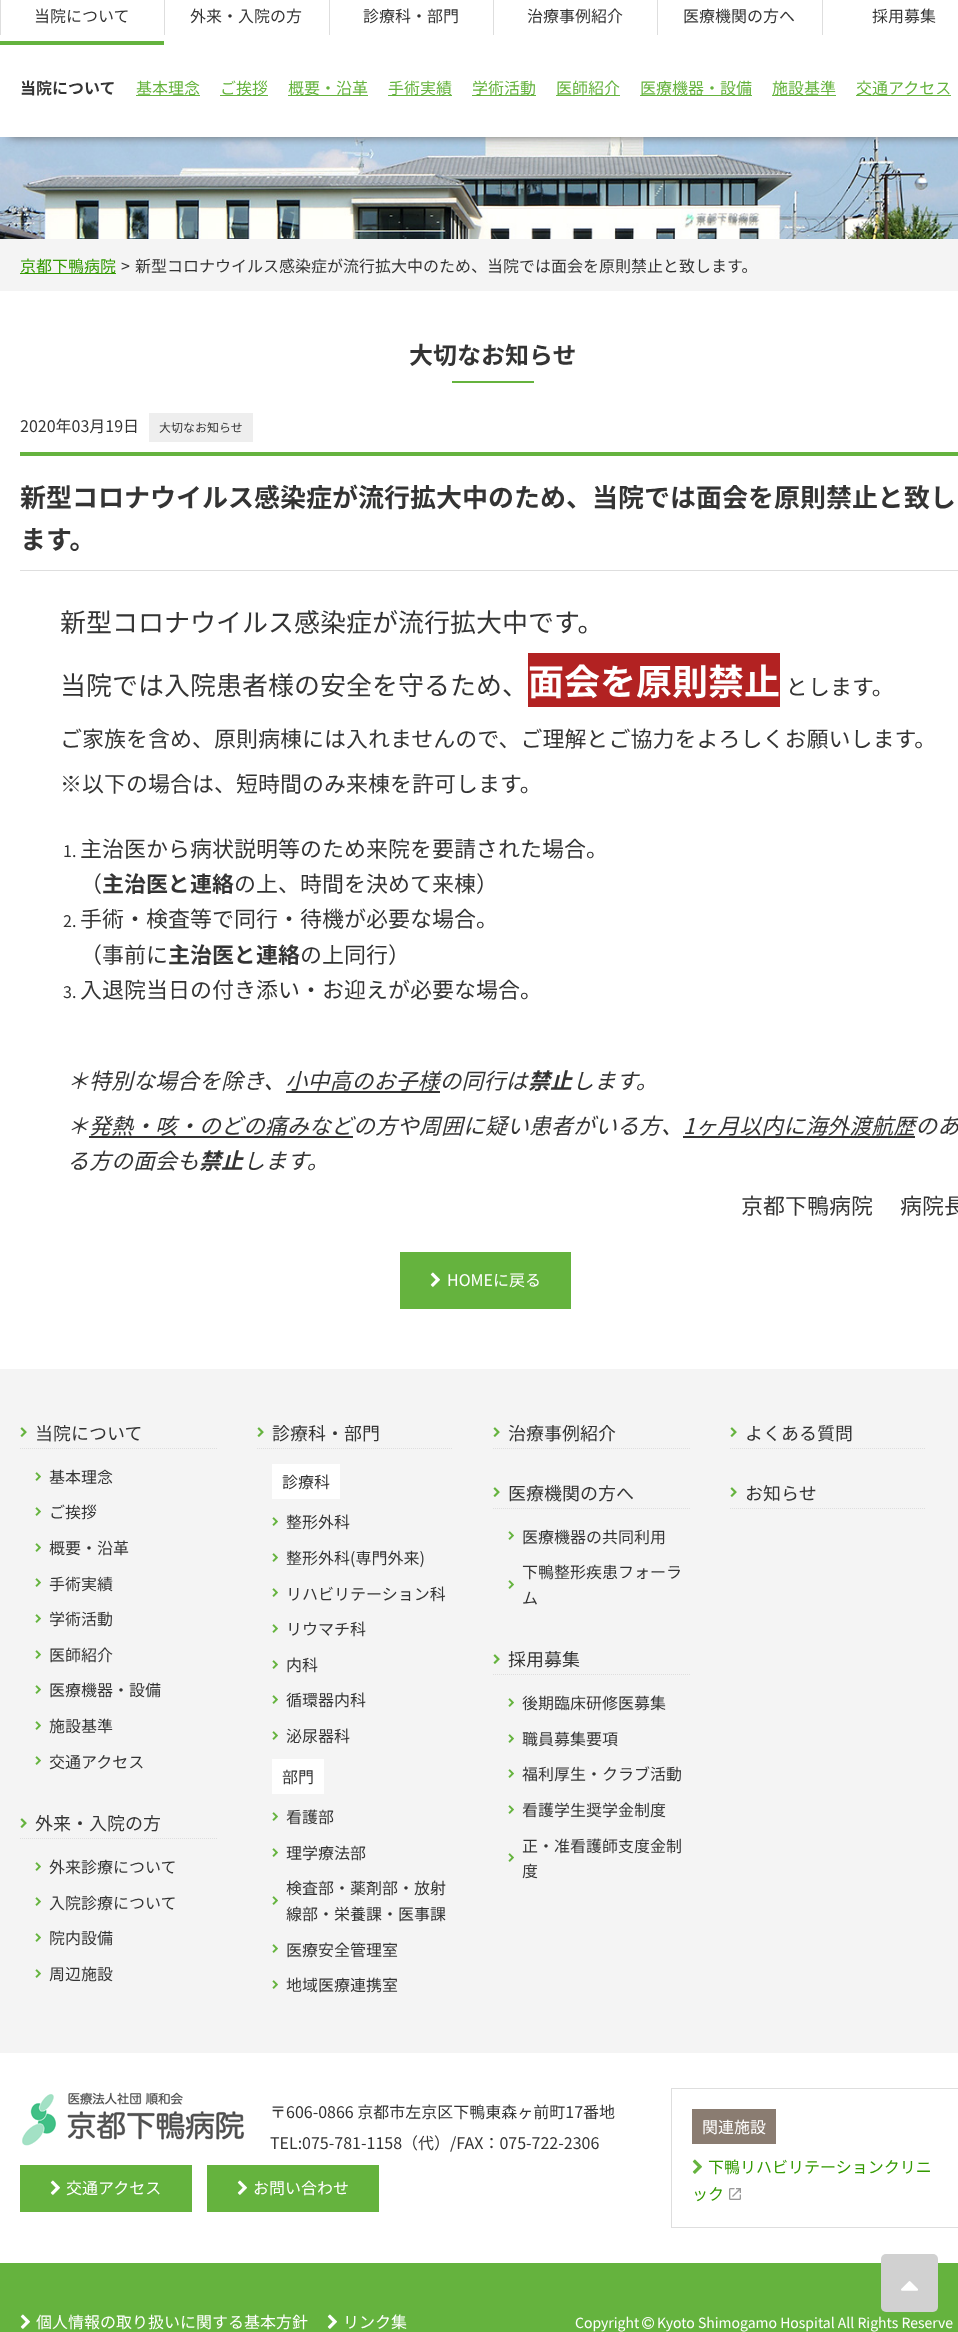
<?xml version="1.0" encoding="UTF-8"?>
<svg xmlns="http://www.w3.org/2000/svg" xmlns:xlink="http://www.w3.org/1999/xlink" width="958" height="2332">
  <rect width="100%" height="100%" fill="#ffffff" />
  <rect y="41" width="164" height="4" fill="#64b33e" />
  <rect width="1" height="35" fill="#dedede" />
  <image x="0" y="137" width="958" height="102" xlink:href="image1.png" />
  <rect x="10" y="65" width="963" height="72" fill="#666666" filter="blur(5px)" />
  <rect y="54" width="958" height="83" fill="#ffffff" />
  <rect x="136" y="95" width="64" height="1" fill="#65b33e" />
  <rect x="220" y="95" width="48" height="1" fill="#65b33e" />
  <rect x="288" y="95" width="80" height="1" fill="#65b33e" />
  <rect x="388" y="95" width="64" height="1" fill="#65b33e" />
  <rect x="472" y="95" width="64" height="1" fill="#65b33e" />
  <rect x="556" y="95" width="64" height="1" fill="#65b33e" />
  <rect x="640" y="95" width="112" height="1" fill="#65b33e" />
  <rect x="772" y="95" width="64" height="1" fill="#65b33e" />
  <rect x="856" y="95" width="95" height="1" fill="#65b33e" />
  <rect x="164" width="1" height="35" fill="#dedede" />
  <rect x="329" width="1" height="35" fill="#dedede" />
  <rect x="493" width="1" height="35" fill="#dedede" />
  <rect x="657" width="1" height="35" fill="#dedede" />
  <rect x="822" width="1" height="35" fill="#dedede" />
  <rect y="239" width="958" height="52" fill="#f4f4f4" />
  <rect x="20" y="273" width="96" height="1" fill="#339900" />
  <rect x="452" y="381" width="82" height="2" fill="#65b33e" />
  <rect x="149" y="413" width="104" height="29" fill="#eeeeee" />
  <rect x="20" y="452" width="938" height="4" fill="#65b33e" />
  <rect x="20" y="570" width="938" height="1" fill="#dedede" />
  <rect x="528" y="653" width="252" height="54" fill="#b22222" />
  <rect x="286" y="1091" width="154" height="2" fill="#343434" />
  <rect x="89" y="1136" width="264" height="2" fill="#343434" />
  <rect x="683" y="1136" width="232" height="2" fill="#343434" />
  <rect x="400" y="1252" width="171" height="57" fill="#65b33e" />
  <image x="430" y="1272" width="10" height="15" xlink:href="image2.png" />
  <rect y="1369" width="958" height="684" fill="#f4f4f4" />
  <path d="M 20 1448.5 h 197" fill="none" stroke="#dedede" stroke-dasharray="1 1" />
  <image x="20" y="1427" width="7" height="10" xlink:href="image3.png" />
  <image x="35" y="1472" width="6" height="9" xlink:href="image4.png" />
  <image x="35" y="1507" width="6" height="9" xlink:href="image4.png" />
  <image x="35" y="1543" width="6" height="9" xlink:href="image4.png" />
  <image x="35" y="1578" width="6" height="9" xlink:href="image4.png" />
  <image x="35" y="1614" width="6" height="9" xlink:href="image4.png" />
  <image x="35" y="1650" width="6" height="9" xlink:href="image4.png" />
  <image x="35" y="1685" width="6" height="9" xlink:href="image4.png" />
  <image x="35" y="1721" width="6" height="9" xlink:href="image4.png" />
  <image x="35" y="1756" width="6" height="9" xlink:href="image4.png" />
  <path d="M 20 1838.5 h 197" fill="none" stroke="#dedede" stroke-dasharray="1 1" />
  <image x="20" y="1818" width="7" height="10" xlink:href="image3.png" />
  <image x="35" y="1862" width="6" height="9" xlink:href="image4.png" />
  <image x="35" y="1897" width="6" height="9" xlink:href="image4.png" />
  <image x="35" y="1933" width="6" height="9" xlink:href="image4.png" />
  <image x="35" y="1969" width="6" height="9" xlink:href="image4.png" />
  <path d="M 257 1448.5 h 196" fill="none" stroke="#dedede" stroke-dasharray="1 1" />
  <image x="257" y="1427" width="7" height="10" xlink:href="image3.png" />
  <rect x="272" y="1464" width="68" height="35" fill="#ffffff" />
  <image x="272" y="1517" width="6" height="9" xlink:href="image4.png" />
  <image x="272" y="1553" width="6" height="9" xlink:href="image4.png" />
  <image x="272" y="1588" width="6" height="9" xlink:href="image4.png" />
  <image x="272" y="1624" width="6" height="9" xlink:href="image4.png" />
  <image x="272" y="1660" width="6" height="9" xlink:href="image4.png" />
  <image x="272" y="1695" width="6" height="9" xlink:href="image4.png" />
  <image x="272" y="1731" width="6" height="9" xlink:href="image4.png" />
  <rect x="272" y="1759" width="52" height="35" fill="#ffffff" />
  <image x="272" y="1812" width="6" height="9" xlink:href="image4.png" />
  <image x="272" y="1848" width="6" height="9" xlink:href="image4.png" />
  <image x="272" y="1896" width="6" height="9" xlink:href="image4.png" />
  <image x="272" y="1944" width="6" height="9" xlink:href="image4.png" />
  <image x="272" y="1980" width="6" height="9" xlink:href="image4.png" />
  <path d="M 493 1448.5 h 197" fill="none" stroke="#dedede" stroke-dasharray="1 1" />
  <image x="493" y="1427" width="7" height="10" xlink:href="image3.png" />
  <path d="M 493 1508.5 h 197" fill="none" stroke="#dedede" stroke-dasharray="1 1" />
  <image x="493" y="1487" width="7" height="10" xlink:href="image3.png" />
  <image x="508" y="1531" width="6" height="9" xlink:href="image4.png" />
  <image x="508" y="1580" width="6" height="9" xlink:href="image4.png" />
  <path d="M 493 1674.5 h 197" fill="none" stroke="#dedede" stroke-dasharray="1 1" />
  <image x="493" y="1654" width="7" height="10" xlink:href="image3.png" />
  <image x="508" y="1698" width="6" height="9" xlink:href="image4.png" />
  <image x="508" y="1734" width="6" height="9" xlink:href="image4.png" />
  <image x="508" y="1769" width="6" height="9" xlink:href="image4.png" />
  <image x="508" y="1805" width="6" height="9" xlink:href="image4.png" />
  <image x="508" y="1853" width="6" height="9" xlink:href="image4.png" />
  <path d="M 730 1448.5 h 196" fill="none" stroke="#dedede" stroke-dasharray="1 1" />
  <image x="730" y="1427" width="7" height="10" xlink:href="image3.png" />
  <path d="M 730 1508.5 h 196" fill="none" stroke="#dedede" stroke-dasharray="1 1" />
  <image x="730" y="1487" width="7" height="10" xlink:href="image3.png" />
  <image x="22" y="2092" width="223" height="54" xlink:href="image5.png" />
  <rect x="20" y="2165" width="172" height="47" fill="#65b33e" />
  <image x="50" y="2180" width="10" height="15" xlink:href="image2.png" />
  <rect x="207" y="2165" width="172" height="47" fill="#65b33e" />
  <image x="237" y="2180" width="10" height="15" xlink:href="image2.png" />
  <rect x="671.5" y="2088.5" width="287" height="139" fill="none" stroke="#dedede" />
  <rect x="692" y="2109" width="84" height="35" fill="#8a7c71" />
  <image x="692" y="2159" width="10" height="15" xlink:href="image6.png" />
  <image x="729" y="2188" width="12" height="12" xlink:href="image7.png" />
  <rect y="2263" width="958" height="69" fill="#65b33e" />
  <image x="20" y="2314" width="10" height="15" xlink:href="image2.png" />
  <image x="327" y="2314" width="10" height="15" xlink:href="image2.png" />
  <image x="642" y="2317" width="12" height="12" xlink:href="image8.png" />
  <rect x="881" y="2254" width="57" height="58" rx="5" fill="#d1d1d1" />
  <image x="901" y="2281" width="17" height="10" xlink:href="image9.png" />
  <text x="34" y="22" style="font-family: Noto Sans JP; font-size: 16px; fill: #343434">当院について</text>
  <text x="20" y="94" style="font-family: Noto Sans JP; font-size: 16px; font-weight: bold; fill: #343434">当院について</text>
  <text x="136" y="94" style="font-family: Noto Sans JP; font-size: 16px; fill: #65b33e">基本理念</text>
  <text x="220" y="94" style="font-family: Noto Sans JP; font-size: 16px; fill: #65b33e">ご挨拶</text>
  <text x="288" y="94" style="font-family: Noto Sans JP; font-size: 16px; fill: #65b33e">概要・沿革</text>
  <text x="388" y="94" style="font-family: Noto Sans JP; font-size: 16px; fill: #65b33e">手術実績</text>
  <text x="472" y="94" style="font-family: Noto Sans JP; font-size: 16px; fill: #65b33e">学術活動</text>
  <text x="556" y="94" style="font-family: Noto Sans JP; font-size: 16px; fill: #65b33e">医師紹介</text>
  <text x="640" y="94" style="font-family: Noto Sans JP; font-size: 16px; fill: #65b33e">医療機器・設備</text>
  <text x="772" y="94" style="font-family: Noto Sans JP; font-size: 16px; fill: #65b33e">施設基準</text>
  <text x="856" y="94" style="font-family: Noto Sans JP; font-size: 16px; fill: #65b33e">交通アクセス</text>
  <text x="190" y="22" style="font-family: Noto Sans JP; font-size: 16px; fill: #343434">外来・入院の方</text>
  <text x="363" y="22" style="font-family: Noto Sans JP; font-size: 16px; fill: #343434">診療科・部門</text>
  <text x="527" y="22" style="font-family: Noto Sans JP; font-size: 16px; fill: #343434">治療事例紹介</text>
  <text x="683" y="22" style="font-family: Noto Sans JP; font-size: 16px; fill: #343434">医療機関の方へ</text>
  <text x="872" y="22" style="font-family: Noto Sans JP; font-size: 16px; fill: #343434">採用募集</text>
  <text x="20" y="272" style="font-family: Noto Sans JP; font-size: 16px; fill: #339900">京都下鴨病院</text>
  <text x="121" y="272" style="font-family: Noto Sans JP; font-size: 16px; fill: #343434">&gt;</text>
  <text x="135" y="272" style="font-family: Noto Sans JP; font-size: 16px; fill: #343434">新型コロナウイルス感染症が流行拡大中のため、当院では面会を原則禁止と致します。</text>
  <text x="409" y="364" style="font-family: Noto Sans JP; font-size: 24px; font-weight: bold; fill: #343434">大切なお知らせ</text>
  <text x="20" y="432" style="font-family: Noto Sans JP; font-size: 16px; fill: #343434">2020年03月19日</text>
  <text x="159" y="432" style="font-family: Noto Sans JP; font-size: 12px; fill: #343434">大切なお知らせ</text>
  <text x="20" y="507" style="font-family: Noto Sans JP; font-size: 26px; font-weight: bold; fill: #343434">新型コロナウイルス感染症が流行拡大中のため、当院では面会を原則禁止と致し</text>
  <text x="20" y="549" style="font-family: Noto Sans JP; font-size: 26px; font-weight: bold; fill: #343434">ます。</text>
  <text x="60" y="632" style="font-family: Noto Sans JP; font-size: 26px; fill: #343434">新型コロナウイルス感染症が流行拡大中です。</text>
  <text x="60" y="695" style="font-family: Noto Sans JP; font-size: 26px; fill: #343434">当院では入院患者様の安全を守るため、</text>
  <text x="528" y="695" style="font-family: Noto Sans JP; font-size: 36px; font-weight: bold; fill: #ffffff">面会を原則禁止</text>
  <text x="786" y="695" style="font-family: Noto Sans JP; font-size: 22px; fill: #343434">とします。</text>
  <text x="60" y="747" style="font-family: Noto Sans JP; font-size: 22px; fill: #343434">ご家族を含め、原則病棟には入れませんので、ご理解とご協力をよろしくお願いします。</text>
  <text x="60" y="792" style="font-family: Noto Sans CJK JP; font-size: 22px; fill: #343434">※</text>
  <text x="82" y="792" style="font-family: Noto Sans JP; font-size: 22px; fill: #343434">以下の場合は、短時間のみ来棟を許可します。</text>
  <text x="63" y="857" style="font-family: Noto Sans JP; font-size: 16px; fill: #343434">1.</text>
  <text x="80" y="857" style="font-family: Noto Sans JP; font-size: 22px; fill: #343434">主治医から病状説明等のため来院を要請された場合。</text>
  <text x="80" y="892" style="font-family: Noto Sans JP; font-size: 22px; fill: #343434">（</text>
  <text x="102" y="892" style="font-family: Noto Sans JP; font-size: 22px; font-weight: bold; fill: #343434">主治医と連絡</text>
  <text x="234" y="892" style="font-family: Noto Sans JP; font-size: 22px; fill: #343434">の上、時間を決めて来棟）</text>
  <text x="63" y="927" style="font-family: Noto Sans JP; font-size: 16px; fill: #343434">2.</text>
  <text x="80" y="927" style="font-family: Noto Sans JP; font-size: 22px; fill: #343434">手術・検査等で同行・待機が必要な場合。</text>
  <text x="80" y="963" style="font-family: Noto Sans JP; font-size: 22px; fill: #343434">（事前に</text>
  <text x="168" y="963" style="font-family: Noto Sans JP; font-size: 22px; font-weight: bold; fill: #343434">主治医と連絡</text>
  <text x="300" y="963" style="font-family: Noto Sans JP; font-size: 22px; fill: #343434">の上同行）</text>
  <text x="63" y="998" style="font-family: Noto Sans JP; font-size: 16px; fill: #343434">3.</text>
  <text x="80" y="998" style="font-family: Noto Sans JP; font-size: 22px; fill: #343434">入退院当日の付き添い・お迎えが必要な場合。</text>
  <text x="67" y="1089" style="font-family: Noto Sans JP; font-size: 22px; font-style: italic; fill: #343434">＊特別な場合を除き、小中高のお子様の同行は</text>
  <text x="528" y="1089" style="font-family: Noto Sans JP; font-size: 22px; font-weight: bold; font-style: italic; fill: #343434">禁止</text>
  <text x="572" y="1089" style="font-family: Noto Sans JP; font-size: 22px; font-style: italic; fill: #343434">します。</text>
  <text x="67" y="1134" style="font-family: Noto Sans JP; font-size: 22px; font-style: italic; fill: #343434">＊発熱・咳・のどの痛みなどの方や周囲に疑い患者がいる方、1ヶ月以内に海外渡航歴のあ</text>
  <text x="67" y="1169" style="font-family: Noto Sans JP; font-size: 22px; font-style: italic; fill: #343434">る方の面会も</text>
  <text x="199" y="1169" style="font-family: Noto Sans JP; font-size: 22px; font-weight: bold; font-style: italic; fill: #343434">禁止</text>
  <text x="243" y="1169" style="font-family: Noto Sans JP; font-size: 22px; font-style: italic; fill: #343434">します。</text>
  <text x="741" y="1214" style="font-family: Noto Sans JP; font-size: 22px; fill: #343434">京都下鴨病院 　病院長</text>
  <text x="447" y="1286" style="font-family: Noto Sans JP; font-size: 16px; fill: #ffffff">HOMEに戻る</text>
  <text x="35" y="1440" style="font-family: Noto Sans JP; font-size: 18px; fill: #343434">当院について</text>
  <text x="49" y="1483" style="font-family: Noto Sans JP; font-size: 16px; fill: #343434">基本理念</text>
  <text x="49" y="1518" style="font-family: Noto Sans JP; font-size: 16px; fill: #343434">ご挨拶</text>
  <text x="49" y="1554" style="font-family: Noto Sans JP; font-size: 16px; fill: #343434">概要・沿革</text>
  <text x="49" y="1590" style="font-family: Noto Sans JP; font-size: 16px; fill: #343434">手術実績</text>
  <text x="49" y="1625" style="font-family: Noto Sans JP; font-size: 16px; fill: #343434">学術活動</text>
  <text x="49" y="1661" style="font-family: Noto Sans JP; font-size: 16px; fill: #343434">医師紹介</text>
  <text x="49" y="1696" style="font-family: Noto Sans JP; font-size: 16px; fill: #343434">医療機器・設備</text>
  <text x="49" y="1732" style="font-family: Noto Sans JP; font-size: 16px; fill: #343434">施設基準</text>
  <text x="49" y="1768" style="font-family: Noto Sans JP; font-size: 16px; fill: #343434">交通アクセス</text>
  <text x="35" y="1830" style="font-family: Noto Sans JP; font-size: 18px; fill: #343434">外来・入院の方</text>
  <text x="49" y="1873" style="font-family: Noto Sans JP; font-size: 16px; fill: #343434">外来診療について</text>
  <text x="49" y="1909" style="font-family: Noto Sans JP; font-size: 16px; fill: #343434">入院診療について</text>
  <text x="49" y="1944" style="font-family: Noto Sans JP; font-size: 16px; fill: #343434">院内設備</text>
  <text x="49" y="1980" style="font-family: Noto Sans JP; font-size: 16px; fill: #343434">周辺施設</text>
  <text x="272" y="1440" style="font-family: Noto Sans JP; font-size: 18px; fill: #343434">診療科・部門</text>
  <text x="282" y="1488" style="font-family: Noto Sans JP; font-size: 16px; fill: #343434">診療科</text>
  <text x="286" y="1528" style="font-family: Noto Sans JP; font-size: 16px; fill: #343434">整形外科</text>
  <text x="286" y="1564" style="font-family: Noto Sans JP; font-size: 16px; fill: #343434">整形外科(専門外来)</text>
  <text x="286" y="1600" style="font-family: Noto Sans JP; font-size: 16px; fill: #343434">リハビリテーション科</text>
  <text x="286" y="1635" style="font-family: Noto Sans JP; font-size: 16px; fill: #343434">リウマチ科</text>
  <text x="286" y="1671" style="font-family: Noto Sans JP; font-size: 16px; fill: #343434">内科</text>
  <text x="286" y="1706" style="font-family: Noto Sans JP; font-size: 16px; fill: #343434">循環器内科</text>
  <text x="286" y="1742" style="font-family: Noto Sans JP; font-size: 16px; fill: #343434">泌尿器科</text>
  <text x="282" y="1783" style="font-family: Noto Sans JP; font-size: 16px; fill: #343434">部門</text>
  <text x="286" y="1823" style="font-family: Noto Sans JP; font-size: 16px; fill: #343434">看護部</text>
  <text x="286" y="1859" style="font-family: Noto Sans JP; font-size: 16px; fill: #343434">理学療法部</text>
  <text x="286" y="1894" style="font-family: Noto Sans JP; font-size: 16px; fill: #343434">検査部・薬剤部・放射</text>
  <text x="286" y="1920" style="font-family: Noto Sans JP; font-size: 16px; fill: #343434">線部・栄養課・医事課</text>
  <text x="286" y="1956" style="font-family: Noto Sans JP; font-size: 16px; fill: #343434">医療安全管理室</text>
  <text x="286" y="1991" style="font-family: Noto Sans JP; font-size: 16px; fill: #343434">地域医療連携室</text>
  <text x="508" y="1440" style="font-family: Noto Sans JP; font-size: 18px; fill: #343434">治療事例紹介</text>
  <text x="508" y="1500" style="font-family: Noto Sans JP; font-size: 18px; fill: #343434">医療機関の方へ</text>
  <text x="522" y="1543" style="font-family: Noto Sans JP; font-size: 16px; fill: #343434">医療機器の共同利用</text>
  <text x="522" y="1578" style="font-family: Noto Sans JP; font-size: 16px; fill: #343434">下鴨整形疾患フォーラ</text>
  <text x="522" y="1604" style="font-family: Noto Sans JP; font-size: 16px; fill: #343434">ム</text>
  <text x="508" y="1666" style="font-family: Noto Sans JP; font-size: 18px; fill: #343434">採用募集</text>
  <text x="522" y="1709" style="font-family: Noto Sans JP; font-size: 16px; fill: #343434">後期臨床研修医募集</text>
  <text x="522" y="1745" style="font-family: Noto Sans JP; font-size: 16px; fill: #343434">職員募集要項</text>
  <text x="522" y="1780" style="font-family: Noto Sans JP; font-size: 16px; fill: #343434">福利厚生・クラブ活動</text>
  <text x="522" y="1816" style="font-family: Noto Sans JP; font-size: 16px; fill: #343434">看護学生奨学金制度</text>
  <text x="522" y="1852" style="font-family: Noto Sans JP; font-size: 16px; fill: #343434">正・准看護師支度金制</text>
  <text x="522" y="1877" style="font-family: Noto Sans JP; font-size: 16px; fill: #343434">度</text>
  <text x="745" y="1440" style="font-family: Noto Sans JP; font-size: 18px; fill: #343434">よくある質問</text>
  <text x="745" y="1500" style="font-family: Noto Sans JP; font-size: 18px; fill: #343434">お知らせ</text>
  <text x="270" y="2118" style="font-family: Noto Sans JP; font-size: 16px; fill: #343434">〒606-0866 京都市左京区下鴨東森ヶ前町17番地</text>
  <text x="270" y="2149" style="font-family: Noto Sans JP; font-size: 16px; fill: #343434">TEL:075-781-1158（代）/FAX：075-722-2306</text>
  <text x="66" y="2194" style="font-family: Noto Sans JP; font-size: 16px; fill: #ffffff">交通アクセス</text>
  <text x="253" y="2194" style="font-family: Noto Sans JP; font-size: 16px; fill: #ffffff">お問い合わせ</text>
  <text x="702" y="2133" style="font-family: Noto Sans JP; font-size: 16px; fill: #ffffff">関連施設</text>
  <text x="708" y="2173" style="font-family: Noto Sans JP; font-size: 16px; fill: #339900">下鴨リハビリテーションクリニ</text>
  <text x="692" y="2200" style="font-family: Noto Sans JP; font-size: 16px; fill: #339900">ック</text>
  <text x="36" y="2328" style="font-family: Noto Sans JP; font-size: 16px; fill: #ffffff">個人情報の取り扱いに関する基本方針</text>
  <text x="343" y="2328" style="font-family: Noto Sans JP; font-size: 16px; fill: #ffffff">リンク集</text>
  <text x="575" y="2328" style="font-family: Noto Sans JP; font-size: 14px; fill: #ffffff">Copyright</text>
  <text x="657" y="2328" style="font-family: Noto Sans JP; font-size: 14px; fill: #ffffff">Kyoto Shimogamo Hospital All Rights Reserve</text>
</svg>
